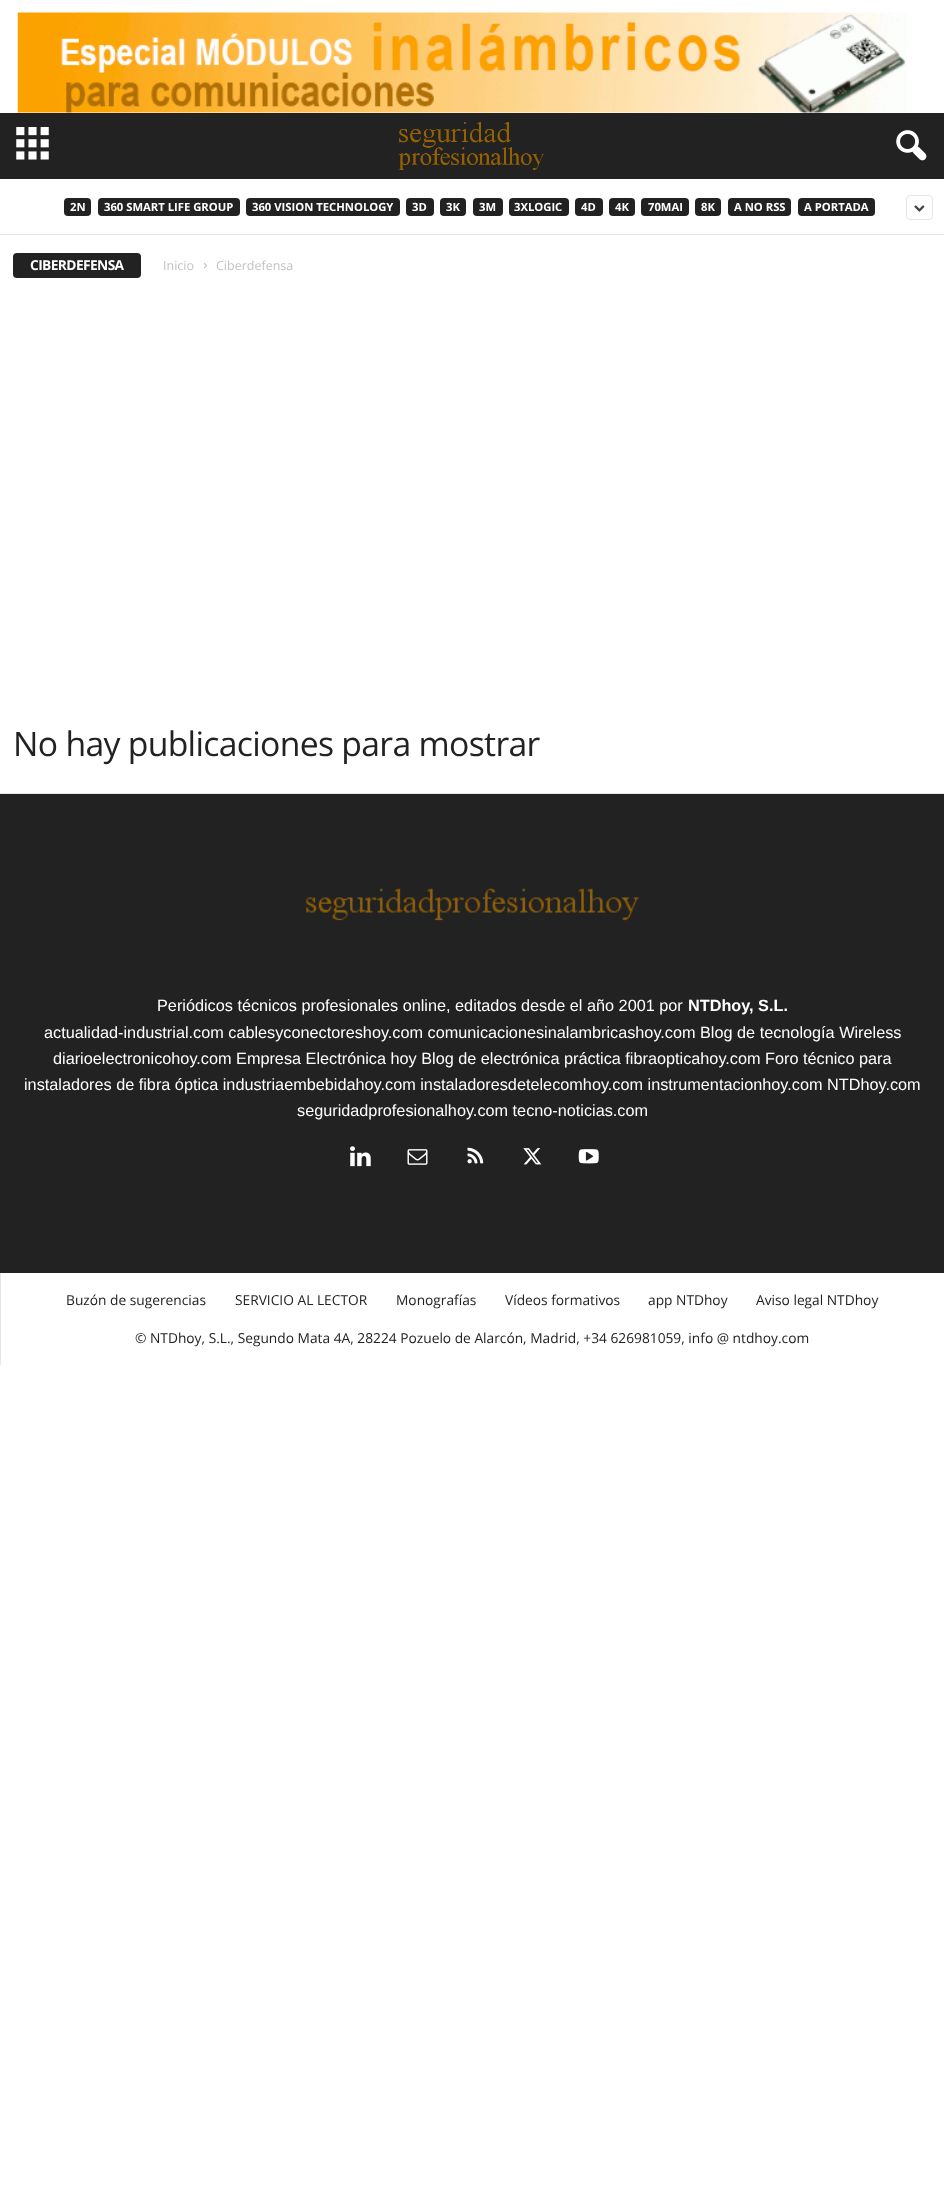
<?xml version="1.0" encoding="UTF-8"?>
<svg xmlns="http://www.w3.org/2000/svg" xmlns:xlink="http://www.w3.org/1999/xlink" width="944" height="2192">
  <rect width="100%" height="100%" fill="#ffffff" />
  <image x="17" y="12" width="890" height="101" xlink:href="image1.png" />
  <rect y="113" width="944" height="66" fill="#222222" />
  <image x="16" y="127" width="33" height="33" xlink:href="image2.png" />
  <image x="398" y="122" width="146" height="48" xlink:href="image3.png" />
  <image x="896" y="130" width="31" height="31" xlink:href="image4.png" />
  <rect x="64" y="198" width="27" height="18" rx="4" fill="#222222" />
  <rect x="98" y="198" width="142" height="18" rx="4" fill="#222222" />
  <rect x="246" y="198" width="154" height="18" rx="4" fill="#222222" />
  <rect x="406" y="198" width="28" height="18" rx="4" fill="#222222" />
  <rect x="440" y="198" width="26" height="18" rx="4" fill="#222222" />
  <rect x="473" y="198" width="30" height="18" rx="4" fill="#222222" />
  <rect x="509" y="198" width="60" height="18" rx="4" fill="#222222" />
  <rect x="575" y="198" width="28" height="18" rx="4" fill="#222222" />
  <rect x="609" y="198" width="26" height="18" rx="4" fill="#222222" />
  <rect x="641" y="198" width="48" height="18" rx="4" fill="#222222" />
  <rect x="695" y="198" width="26" height="18" rx="4" fill="#222222" />
  <rect x="728" y="198" width="63" height="18" rx="4" fill="#222222" />
  <rect x="798" y="198" width="77" height="18" rx="4" fill="#222222" />
  <rect x="906.5" y="195.5" width="26" height="24" rx="3.5" fill="none" stroke="#e6e6e6" />
  <image x="914" y="205" width="11" height="7" xlink:href="image5.png" />
  <rect y="793" width="944" height="1" fill="#e6e6e6" />
  <rect y="234" width="944" height="1" fill="#e6e6e6" />
  <rect x="13" y="253" width="128" height="25" rx="4" fill="#222222" />
  <image x="203" y="262" width="4" height="7" xlink:href="image6.png" />
  <rect y="794" width="944" height="479" fill="#222222" />
  <image x="306" y="888" width="333" height="33" xlink:href="image7.png" />
  <image x="350" y="1146" width="21" height="21" xlink:href="image8.png" />
  <image x="407" y="1149" width="21" height="16" xlink:href="image9.png" />
  <image x="467" y="1147" width="17" height="17" xlink:href="image10.png" />
  <image x="523" y="1148" width="19" height="17" xlink:href="image11.png" />
  <image x="578" y="1149" width="21" height="15" xlink:href="image12.png" />
  <rect y="1273" width="1" height="92" fill="#e6e6e6" />
  <text x="70" y="211" style="font-family: Open Sans; font-size: 11.25px; font-weight: bold; fill: #ffffff">2N</text>
  <text x="104" y="211" style="font-family: Open Sans; font-size: 11.25px; font-weight: bold; fill: #ffffff">360 SMART LIFE GROUP</text>
  <text x="252" y="211" style="font-family: Open Sans; font-size: 11.25px; font-weight: bold; fill: #ffffff">360 VISION TECHNOLOGY</text>
  <text x="412" y="211" style="font-family: Open Sans; font-size: 11.25px; font-weight: bold; fill: #ffffff">3D</text>
  <text x="446" y="211" style="font-family: Open Sans; font-size: 11.25px; font-weight: bold; fill: #ffffff">3K</text>
  <text x="479" y="211" style="font-family: Open Sans; font-size: 11.25px; font-weight: bold; fill: #ffffff">3M</text>
  <text x="514" y="211" style="font-family: Open Sans; font-size: 11.25px; font-weight: bold; fill: #ffffff">3XLOGIC</text>
  <text x="581" y="211" style="font-family: Open Sans; font-size: 11.25px; font-weight: bold; fill: #ffffff">4D</text>
  <text x="615" y="211" style="font-family: Open Sans; font-size: 11.25px; font-weight: bold; fill: #ffffff">4K</text>
  <text x="648" y="211" style="font-family: Open Sans; font-size: 11.25px; font-weight: bold; fill: #ffffff">70MAI</text>
  <text x="701" y="211" style="font-family: Open Sans; font-size: 11.25px; font-weight: bold; fill: #ffffff">8K</text>
  <text x="734" y="211" style="font-family: Open Sans; font-size: 11.25px; font-weight: bold; fill: #ffffff">A NO RSS</text>
  <text x="804" y="211" style="font-family: Open Sans; font-size: 11.25px; font-weight: bold; fill: #ffffff">A PORTADA</text>
  <text x="30" y="270" style="font-family: Open Sans; font-size: 13.75px; font-weight: bold; letter-spacing: -0.6px; fill: #ffffff">CIBERDEFENSA</text>
  <text x="163" y="270" style="font-family: Open Sans; font-size: 12.5px; fill: #c3c3c3">Inicio</text>
  <text x="216" y="270" style="font-family: Open Sans; font-size: 12.5px; fill: #c3c3c3">Ciberdefensa</text>
  <text x="13" y="756" style="font-family: Open Sans; font-size: 33.75px; letter-spacing: -0.7px; fill: #222222">No hay publicaciones para mostrar</text>
  <text x="157" y="1011" style="font-family: Liberation Sans; font-size: 16.25px; fill: #ffffff">Periódicos técnicos profesionales online, editados desde el año 2001 por</text>
  <text x="688" y="1011" style="font-family: Liberation Sans; font-size: 16.25px; font-weight: bold; fill: #ffffff">NTDhoy, S.L.</text>
  <text x="44" y="1038" style="font-family: Liberation Sans; font-size: 16.25px; fill: #ffffff">actualidad-industrial.com cablesyconectoreshoy.com comunicacionesinalambricashoy.com Blog de tecnología Wireless</text>
  <text x="53" y="1064" style="font-family: Liberation Sans; font-size: 16.25px; fill: #ffffff">diarioelectronicohoy.com Empresa Electrónica hoy Blog de electrónica práctica fibraopticahoy.com Foro técnico para</text>
  <text x="24" y="1090" style="font-family: Liberation Sans; font-size: 16.25px; fill: #ffffff">instaladores de fibra óptica industriaembebidahoy.com instaladoresdetelecomhoy.com instrumentacionhoy.com NTDhoy.com</text>
  <text x="297" y="1116" style="font-family: Liberation Sans; font-size: 16.25px; fill: #ffffff">seguridadprofesionalhoy.com tecno-noticias.com</text>
  <text x="66" y="1305" style="font-family: Open Sans; font-size: 13.75px; fill: #222222">Buzón de sugerencias</text>
  <text x="235" y="1305" style="font-family: Open Sans; font-size: 13.75px; fill: #222222">SERVICIO AL LECTOR</text>
  <text x="396" y="1305" style="font-family: Open Sans; font-size: 13.75px; fill: #222222">Monografías</text>
  <text x="505" y="1305" style="font-family: Open Sans; font-size: 13.75px; fill: #222222">Vídeos formativos</text>
  <text x="648" y="1305" style="font-family: Open Sans; font-size: 13.75px; fill: #222222">app NTDhoy</text>
  <text x="756" y="1305" style="font-family: Open Sans; font-size: 13.75px; fill: #222222">Aviso legal NTDhoy</text>
  <text x="135" y="1343" style="font-family: Open Sans; font-size: 13.75px; fill: #222222">© NTDhoy, S.L., Segundo Mata 4A, 28224 Pozuelo de Alarcón, Madrid, +34 626981059, info @ ntdhoy.com</text>
</svg>
